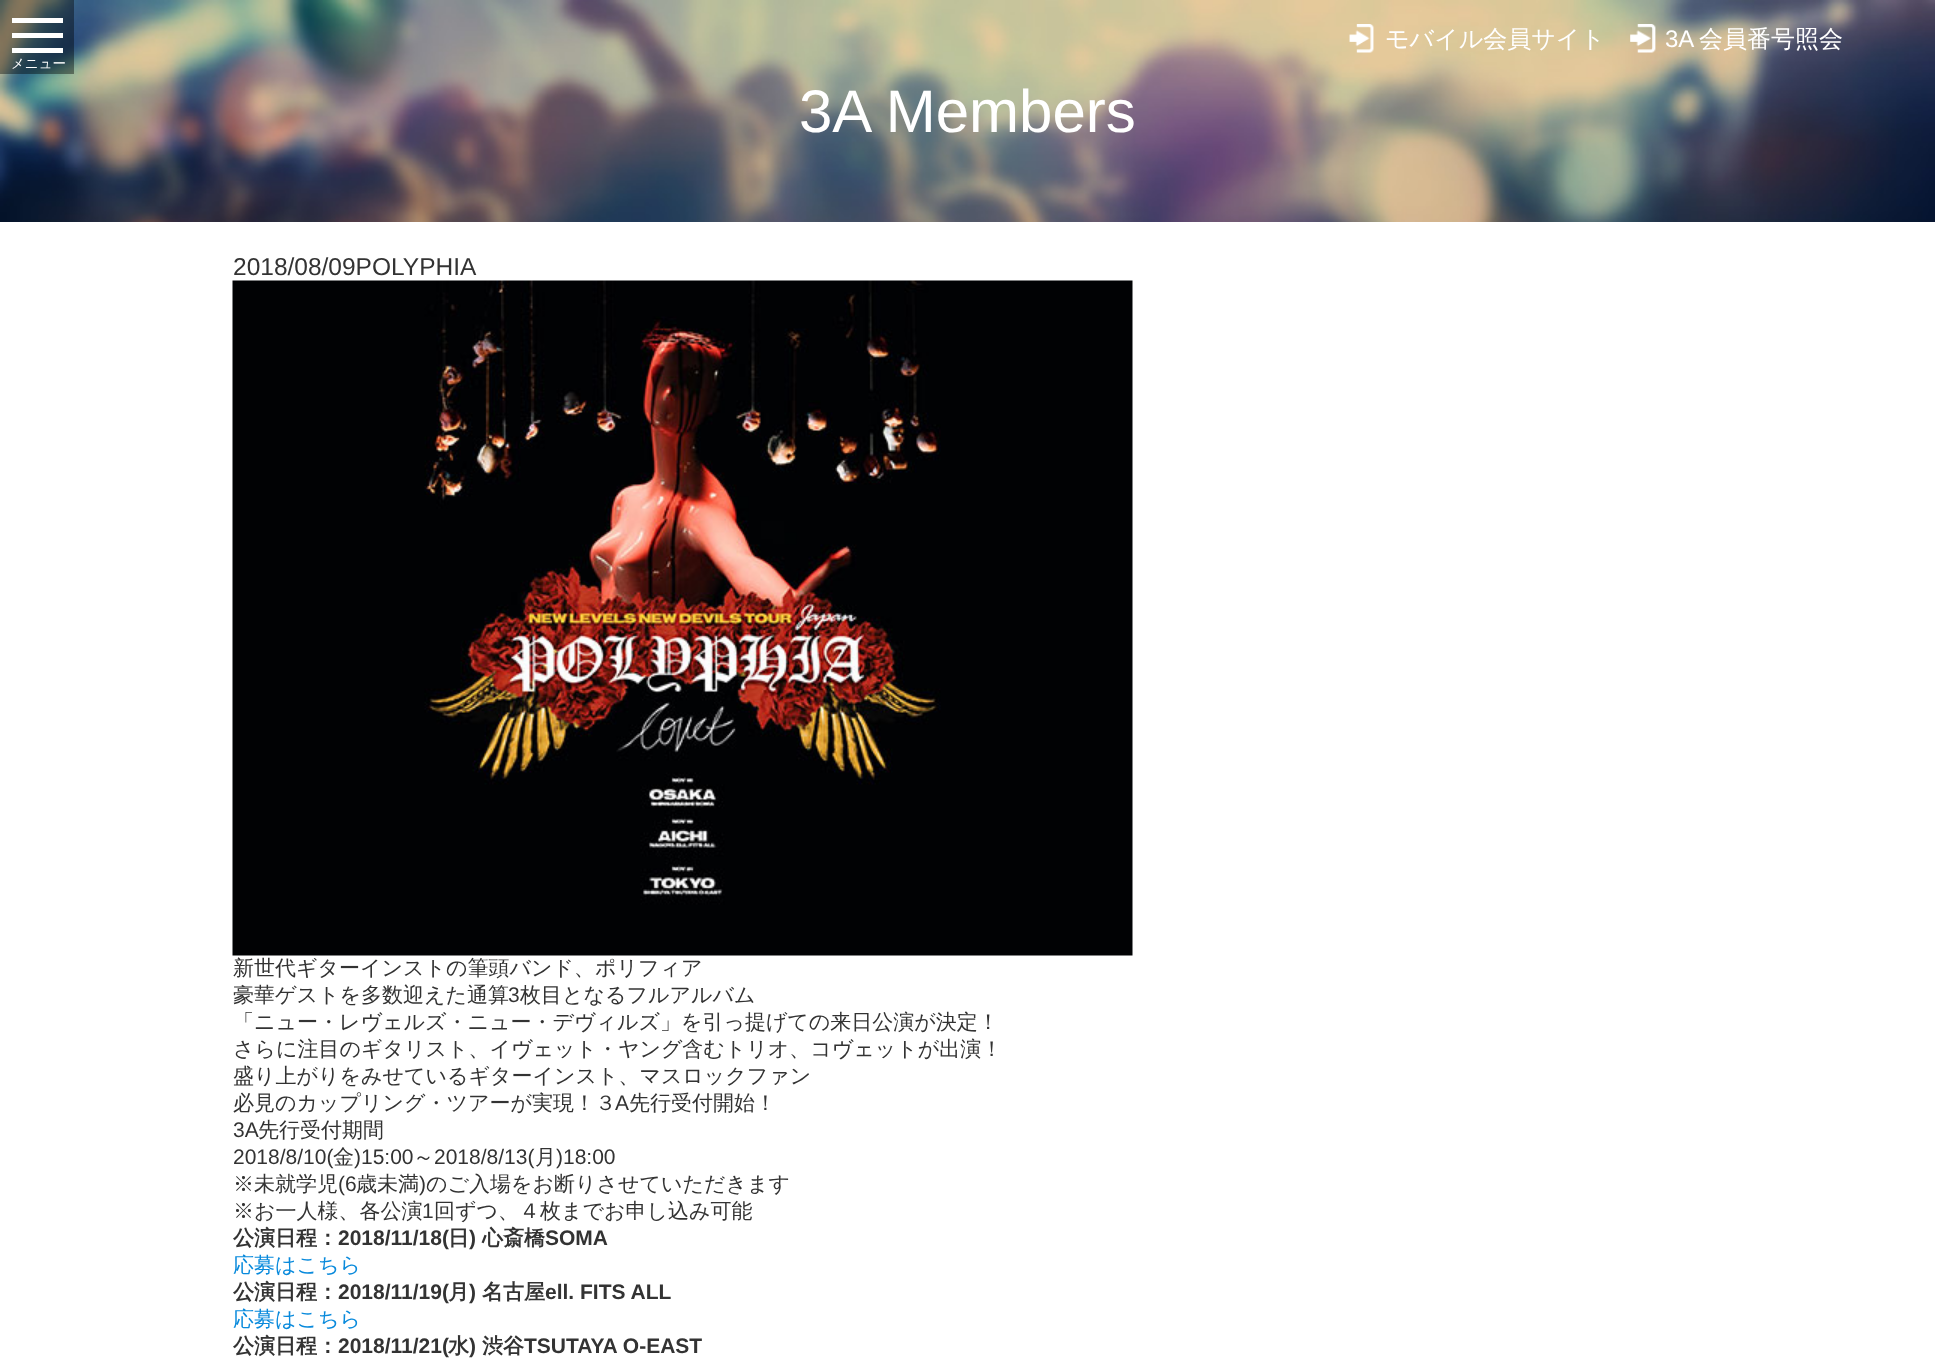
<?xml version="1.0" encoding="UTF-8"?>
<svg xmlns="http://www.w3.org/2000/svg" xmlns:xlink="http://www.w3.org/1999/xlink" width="1935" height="1368">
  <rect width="100%" height="100%" fill="#ffffff" />
  <image x="0" y="0" width="1935" height="222" xlink:href="image1.png" />
  <rect width="74" height="74" fill="#000000" fill-opacity="0.4" />
  <rect x="12" y="33" width="51" height="5" fill="#ffffff" />
  <rect x="12" y="18" width="51" height="5" fill="#ffffff" />
  <rect x="12" y="48" width="51" height="5" fill="#ffffff" />
  <image x="1349" y="24" width="25" height="29" xlink:href="image2.png" />
  <image x="1630" y="24" width="26" height="29" xlink:href="image3.png" />
  <image x="232" y="280" width="901" height="676" xlink:href="image4.png" />
  <text x="11" y="68" style="font-family: WenQuanYi Zen Hei; font-size: 13.5px; font-weight: 500; fill: #ffffff">メニュー</text>
  <text x="1385" y="47" style="font-family: WenQuanYi Zen Hei; font-size: 24px; font-weight: 500; fill: #ffffff">モバイル会員サイト</text>
  <text x="1665" y="47" style="font-family: Liberation Sans; font-size: 24px; fill: #ffffff">3A</text>
  <text x="1699" y="47" style="font-family: WenQuanYi Zen Hei; font-size: 24px; font-weight: 500; fill: #ffffff">会員番号照会</text>
  <text x="799" y="132" style="font-family: Liberation Sans; font-size: 60px; fill: #ffffff">3A Members</text>
  <text x="233" y="275" style="font-family: Liberation Sans; font-size: 24.5px; fill: #333333">2018/08/09POLYPHIA</text>
  <text x="233" y="975" style="font-family: WenQuanYi Zen Hei; font-size: 21px; font-weight: 500; fill: #333333">新世代ギターインストの筆頭バンド、ポリフィア</text>
  <text x="233" y="1002" style="font-family: WenQuanYi Zen Hei; font-size: 21px; font-weight: 500; fill: #333333">豪華ゲストを多数迎えた通算</text>
  <text x="508" y="1002" style="font-family: Liberation Sans; font-size: 21px; fill: #333333">3</text>
  <text x="520" y="1002" style="font-family: WenQuanYi Zen Hei; font-size: 21px; font-weight: 500; fill: #333333">枚目となるフルアルバム</text>
  <text x="233" y="1029" style="font-family: WenQuanYi Zen Hei; font-size: 21px; font-weight: 500; fill: #333333">「ニュー・レヴェルズ・ニュー・デヴィルズ」を引っ提げての来日公演が決定！</text>
  <text x="233" y="1056" style="font-family: WenQuanYi Zen Hei; font-size: 21px; font-weight: 500; fill: #333333">さらに注目のギタリスト、イヴェット・ヤング含むトリオ、コヴェットが出演！</text>
  <text x="233" y="1083" style="font-family: WenQuanYi Zen Hei; font-size: 21px; font-weight: 500; fill: #333333">盛り上がりをみせているギターインスト、マスロックファン</text>
  <text x="233" y="1110" style="font-family: WenQuanYi Zen Hei; font-size: 21px; font-weight: 500; fill: #333333">必見のカップリング・ツアーが実現！３</text>
  <text x="615" y="1110" style="font-family: Liberation Sans; font-size: 21px; fill: #333333">A</text>
  <text x="629" y="1110" style="font-family: WenQuanYi Zen Hei; font-size: 21px; font-weight: 500; fill: #333333">先行受付開始！</text>
  <text x="233" y="1137" style="font-family: Liberation Sans; font-size: 21px; fill: #333333">3A</text>
  <text x="258" y="1137" style="font-family: WenQuanYi Zen Hei; font-size: 21px; font-weight: 500; fill: #333333">先行受付期間</text>
  <text x="233" y="1164" style="font-family: Liberation Sans; font-size: 21px; fill: #333333">2018/8/10(</text>
  <text x="333" y="1164" style="font-family: WenQuanYi Zen Hei; font-size: 21px; font-weight: 500; fill: #333333">金</text>
  <text x="354" y="1164" style="font-family: Liberation Sans; font-size: 21px; fill: #333333">)15:00</text>
  <text x="413" y="1164" style="font-family: WenQuanYi Zen Hei; font-size: 21px; font-weight: 500; fill: #333333">～</text>
  <text x="434" y="1164" style="font-family: Liberation Sans; font-size: 21px; fill: #333333">2018/8/13(</text>
  <text x="535" y="1164" style="font-family: WenQuanYi Zen Hei; font-size: 21px; font-weight: 500; fill: #333333">月</text>
  <text x="556" y="1164" style="font-family: Liberation Sans; font-size: 21px; fill: #333333">)18:00</text>
  <text x="233" y="1191" style="font-family: WenQuanYi Zen Hei; font-size: 21px; font-weight: 500; fill: #333333">※未就学児</text>
  <text x="338" y="1191" style="font-family: Liberation Sans; font-size: 21px; fill: #333333">(6</text>
  <text x="356" y="1191" style="font-family: WenQuanYi Zen Hei; font-size: 21px; font-weight: 500; fill: #333333">歳未満</text>
  <text x="419" y="1191" style="font-family: Liberation Sans; font-size: 21px; fill: #333333">)</text>
  <text x="426" y="1191" style="font-family: WenQuanYi Zen Hei; font-size: 21px; font-weight: 500; fill: #333333">のご入場をお断りさせていただきます</text>
  <text x="233" y="1218" style="font-family: WenQuanYi Zen Hei; font-size: 21px; font-weight: 500; fill: #333333">※お一人様、各公演</text>
  <text x="422" y="1218" style="font-family: Liberation Sans; font-size: 21px; fill: #333333">1</text>
  <text x="434" y="1218" style="font-family: WenQuanYi Zen Hei; font-size: 21px; font-weight: 500; fill: #333333">回ずつ、４枚までお申し込み可能</text>
  <text x="233" y="1245" style="font-family: WenQuanYi Zen Hei; font-size: 21px; font-weight: bold; fill: #333333">公演日程：</text>
  <text x="338" y="1245" style="font-family: Liberation Sans; font-size: 21px; font-weight: bold; fill: #333333">2018/11/18(</text>
  <text x="448" y="1245" style="font-family: WenQuanYi Zen Hei; font-size: 21px; font-weight: bold; fill: #333333">日</text>
  <text x="469" y="1245" style="font-family: Liberation Sans; font-size: 21px; font-weight: bold; fill: #333333">)</text>
  <text x="482" y="1245" style="font-family: WenQuanYi Zen Hei; font-size: 21px; font-weight: bold; fill: #333333">心斎橋</text>
  <text x="545" y="1245" style="font-family: Liberation Sans; font-size: 21px; font-weight: bold; fill: #333333">SOMA</text>
  <text x="233" y="1272" style="font-family: WenQuanYi Zen Hei; font-size: 21px; font-weight: 500; fill: #098adc">応募はこちら</text>
  <text x="233" y="1299" style="font-family: WenQuanYi Zen Hei; font-size: 21px; font-weight: bold; fill: #333333">公演日程：</text>
  <text x="338" y="1299" style="font-family: Liberation Sans; font-size: 21px; font-weight: bold; fill: #333333">2018/11/19(</text>
  <text x="448" y="1299" style="font-family: WenQuanYi Zen Hei; font-size: 21px; font-weight: bold; fill: #333333">月</text>
  <text x="469" y="1299" style="font-family: Liberation Sans; font-size: 21px; font-weight: bold; fill: #333333">)</text>
  <text x="482" y="1299" style="font-family: WenQuanYi Zen Hei; font-size: 21px; font-weight: bold; fill: #333333">名古屋</text>
  <text x="545" y="1299" style="font-family: Liberation Sans; font-size: 21px; font-weight: bold; fill: #333333">ell. FITS ALL</text>
  <text x="233" y="1326" style="font-family: WenQuanYi Zen Hei; font-size: 21px; font-weight: 500; fill: #098adc">応募はこちら</text>
  <text x="233" y="1353" style="font-family: WenQuanYi Zen Hei; font-size: 21px; font-weight: bold; fill: #333333">公演日程：</text>
  <text x="338" y="1353" style="font-family: Liberation Sans; font-size: 21px; font-weight: bold; fill: #333333">2018/11/21(</text>
  <text x="448" y="1353" style="font-family: WenQuanYi Zen Hei; font-size: 21px; font-weight: bold; fill: #333333">水</text>
  <text x="469" y="1353" style="font-family: Liberation Sans; font-size: 21px; font-weight: bold; fill: #333333">)</text>
  <text x="482" y="1353" style="font-family: WenQuanYi Zen Hei; font-size: 21px; font-weight: bold; fill: #333333">渋谷</text>
  <text x="524" y="1353" style="font-family: Liberation Sans; font-size: 21px; font-weight: bold; fill: #333333">TSUTAYA O-EAST</text>
</svg>
